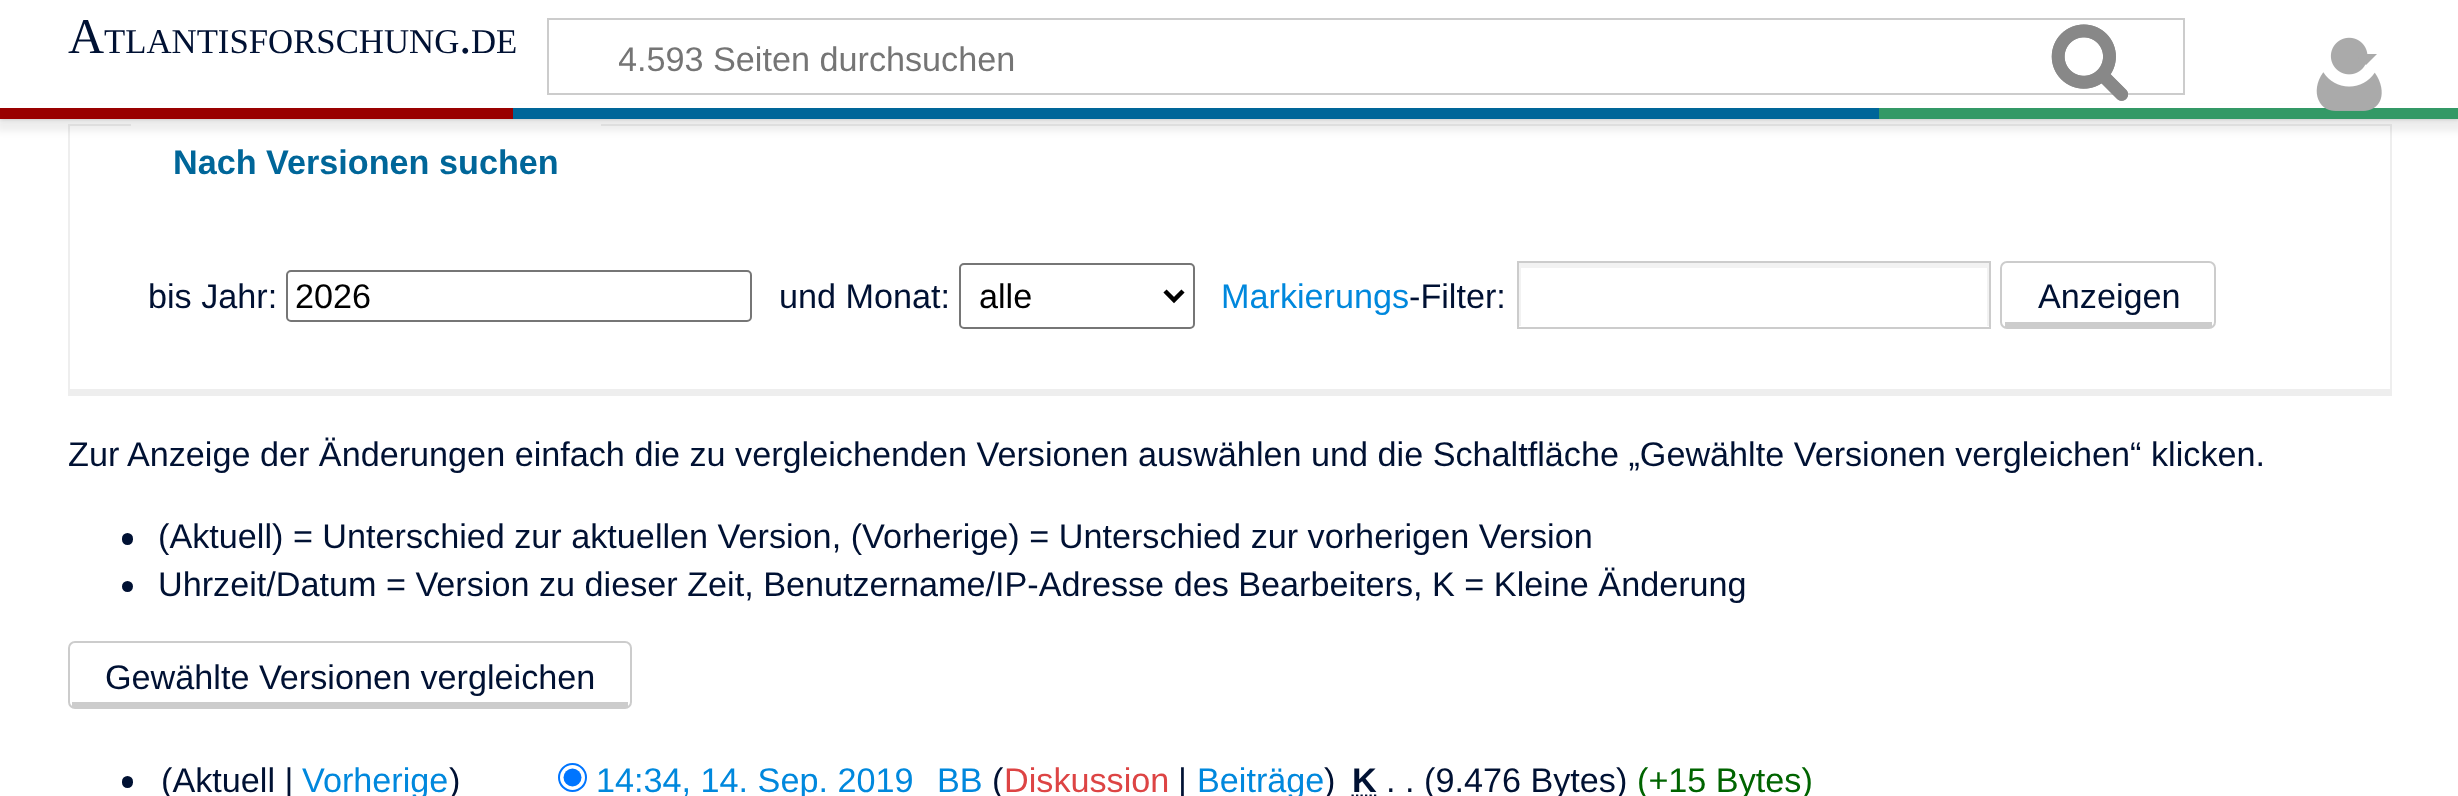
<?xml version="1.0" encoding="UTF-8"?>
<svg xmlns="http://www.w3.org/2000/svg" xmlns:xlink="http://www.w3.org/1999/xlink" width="2458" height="796">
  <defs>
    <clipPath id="clip1"><rect x="1519" y="263" width="470" height="63" /></clipPath>
    <clipPath id="clip2"><rect x="619" y="41" width="1402" height="38" /></clipPath>
  </defs>
  <rect width="100%" height="100%" fill="#ffffff" />
  <rect x="68" y="124" width="2324" height="2" fill="#eeeeee" />
  <rect x="2390" y="124" width="2" height="272" fill="#eeeeee" />
  <rect x="68" y="389" width="2324" height="7" fill="#eeeeee" />
  <rect x="68" y="124" width="2" height="272" fill="#eeeeee" />
  <rect x="131" y="124" width="470" height="2" fill="#ffffff" />
  <rect y="108" width="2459" height="11" fill="#000000" fill-opacity="0.2" filter="blur(2px)" />
  <rect x="-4" y="110" width="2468" height="21" fill="#000000" fill-opacity="0.07" filter="blur(3.5px)" />
  <rect y="104" width="2458" height="4" fill="#ffffff" />
  <rect x="548" y="19" width="1636" height="75" fill="none" stroke="#cccccc" stroke-width="2" />
  <image x="2051" y="24" width="77" height="77" xlink:href="image1.png" />
  <image x="2051" y="24" width="77" height="77" xlink:href="image2.png" />
  <rect x="1879" y="108" width="579" height="11" fill="#339966" />
  <image x="2316" y="37" width="66" height="74" xlink:href="image3.png" />
  <path d="M 2377 54 l -11 11 l -11.5 -11 z" fill="#aaaaaa" />
  <rect y="108" width="513" height="11" fill="#990000" />
  <rect x="513" y="108" width="1366" height="11" fill="#006699" />
  <rect x="287" y="271" width="464" height="50" rx="4" fill="none" stroke="#767676" stroke-width="2" />
  <rect x="960" y="264" width="234" height="64" rx="4" fill="none" stroke="#767676" stroke-width="2" />
  <path d="M 1165 291 l 9 9 l 9 -9" fill="none" stroke="#000000" stroke-width="4.5" />
  <g clip-path="url(#clip1)">
    <path d="M 1296 40 h 916 v 509 h -916 z m 225 228 h 466 v 58 h -466 z" fill="#f2f2f2" fill-rule="evenodd" />
  </g>
  <rect x="1518" y="262" width="472" height="66" fill="none" stroke="#cccccc" stroke-width="2" />
  <rect x="2001" y="262" width="214" height="66" rx="6" fill="none" stroke="#cccccc" stroke-width="2" />
  <rect x="2005" y="322" width="207" height="5" fill="#cccccc" />
  <rect x="122" y="533" width="11" height="12" rx="5.5" fill="#001133" />
  <circle cx="127.5" cy="586.5" r="5.5" fill="#001133" />
  <rect x="69" y="642" width="562" height="66" rx="6" fill="none" stroke="#cccccc" stroke-width="2" />
  <rect x="72" y="702" width="556" height="5" fill="#cccccc" />
  <rect x="122" y="776" width="11" height="12" rx="5.5" fill="#001133" />
  <circle cx="572.5" cy="777.5" r="13.5" fill="none" stroke="#0075ff" stroke-width="2" />
  <circle cx="572.5" cy="777.5" r="9" fill="#0075ff" />
  <path d="M 1351.5 795.5 h 25" fill="none" stroke="#001133" stroke-width="2.2" stroke-dasharray="2.25 2.25" />
  <text x="68" y="53" style="font-family: Liberation Serif; font-size: 50px; fill: #001133">A</text>
  <text x="104" y="53" style="font-family: Liberation Serif; font-size: 34.75px; fill: #001133">TLANTISFORSCHUNG</text>
  <text x="459" y="53" style="font-family: Liberation Serif; font-size: 50px; fill: #001133">.</text>
  <text x="471" y="53" style="font-family: Liberation Serif; font-size: 34.75px; fill: #001133">DE</text>
  <g clip-path="url(#clip2)">
    <text x="618" y="71" style="font-family: Liberation Sans; font-size: 34.2px; fill: #757575">4.593 Seiten durchsuchen</text>
  </g>
  <text x="173" y="174" style="font-family: Liberation Sans; font-size: 34.2px; font-weight: bold; fill: #006699">Nach Versionen suchen</text>
  <text x="148" y="308" style="font-family: Liberation Sans; font-size: 34.2px; fill: #001133">bis Jahr:</text>
  <text x="295" y="308" style="font-family: Liberation Sans; font-size: 34.2px; fill: #000000">2026</text>
  <text x="779" y="308" style="font-family: Liberation Sans; font-size: 34.2px; fill: #001133">und Monat:</text>
  <text x="979" y="308" style="font-family: Liberation Sans; font-size: 34.2px; fill: #000000">alle</text>
  <text x="1221" y="308" style="font-family: Liberation Sans; font-size: 34.2px; fill: #0088dd">Markierungs</text>
  <text x="1409" y="308" style="font-family: Liberation Sans; font-size: 34.2px; fill: #001133">-Filter:</text>
  <text x="2038" y="308" style="font-family: Liberation Sans; font-size: 34.2px; fill: #001133">Anzeigen</text>
  <text x="68" y="466" style="font-family: Liberation Sans; font-size: 34.2px; fill: #001133">Zur Anzeige der Änderungen einfach die zu vergleichenden Versionen auswählen und die Schaltfläche „Gewählte Versionen vergleichen“ klicken.</text>
  <text x="158" y="548" style="font-family: Liberation Sans; font-size: 34.2px; fill: #001133">(Aktuell) = Unterschied zur aktuellen Version, (Vorherige) = Unterschied zur vorherigen Version</text>
  <text x="158" y="596" style="font-family: Liberation Sans; font-size: 34.2px; fill: #001133">Uhrzeit/Datum = Version zu dieser Zeit, Benutzername/IP-Adresse des Bearbeiters, K = Kleine Änderung</text>
  <text x="105" y="689" style="font-family: Liberation Sans; font-size: 34.2px; fill: #001133">Gewählte Versionen vergleichen</text>
  <text x="161" y="792" style="font-family: Liberation Sans; font-size: 34.2px; fill: #001133">(Aktuell |</text>
  <text x="302" y="792" style="font-family: Liberation Sans; font-size: 34.2px; fill: #0088dd">Vorherige</text>
  <text x="449" y="792" style="font-family: Liberation Sans; font-size: 34.2px; fill: #001133">)</text>
  <text x="596" y="792" style="font-family: Liberation Sans; font-size: 34.2px; fill: #0088dd">14:34, 14. Sep. 2019</text>
  <text x="937" y="792" style="font-family: Liberation Sans; font-size: 34.2px; fill: #0088dd">BB</text>
  <text x="992" y="792" style="font-family: Liberation Sans; font-size: 34.2px; fill: #001133">(</text>
  <text x="1004" y="792" style="font-family: Liberation Sans; font-size: 34.2px; fill: #dd4444">Diskussion</text>
  <text x="1178" y="792" style="font-family: Liberation Sans; font-size: 34.2px; fill: #001133">|</text>
  <text x="1197" y="792" style="font-family: Liberation Sans; font-size: 34.2px; fill: #0088dd">Beiträge</text>
  <text x="1324" y="792" style="font-family: Liberation Sans; font-size: 34.2px; fill: #001133">)</text>
  <text x="1352" y="792" style="font-family: Liberation Sans; font-size: 34.2px; font-weight: bold; fill: #001133">K</text>
  <text x="1386" y="792" style="font-family: Liberation Sans; font-size: 34.2px; fill: #001133">. . (9.476 Bytes)</text>
  <text x="1637" y="792" style="font-family: Liberation Sans; font-size: 34.2px; fill: #006400">(+15 Bytes)</text>
</svg>
